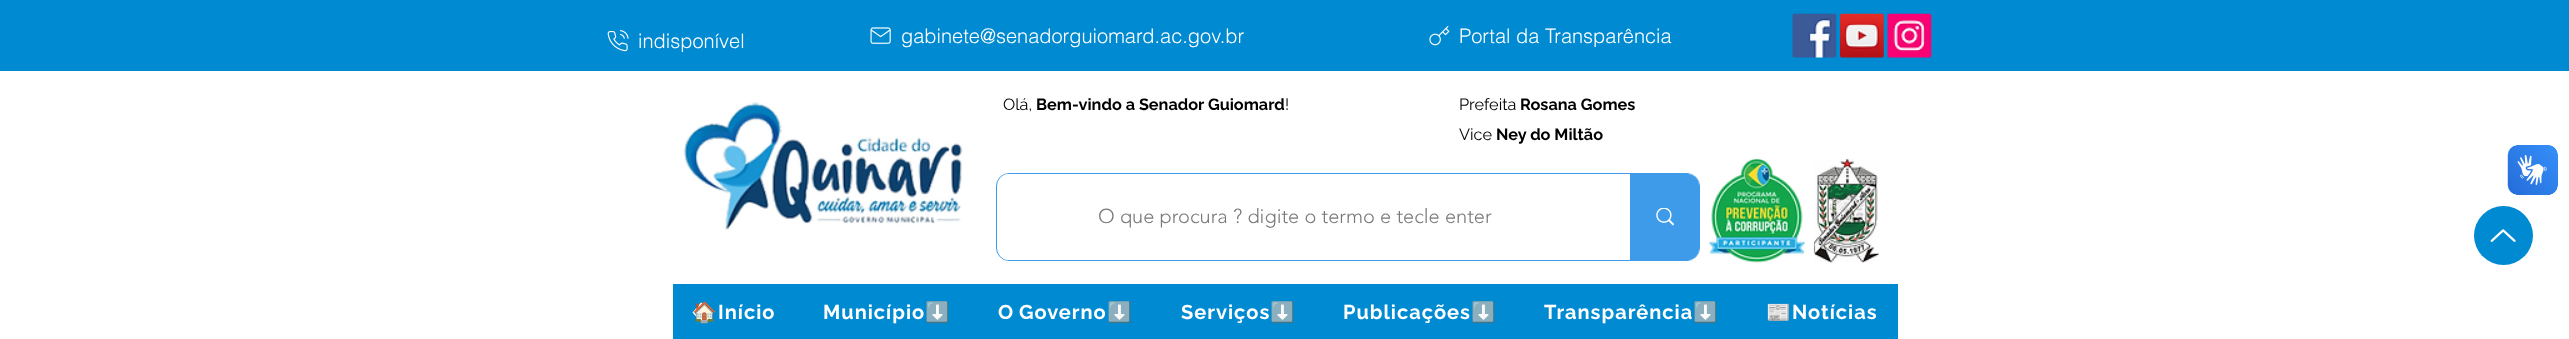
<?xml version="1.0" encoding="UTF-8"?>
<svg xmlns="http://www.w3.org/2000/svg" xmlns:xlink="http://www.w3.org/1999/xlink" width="2569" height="339">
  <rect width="100%" height="100%" fill="#ffffff" />
  <rect width="2569" height="71" fill="#008ad1" />
  <image x="607" y="30" width="22" height="22" xlink:href="image1.png" />
  <image x="870" y="27" width="21" height="17" xlink:href="image2.png" />
  <image x="1429" y="26" width="21" height="20" xlink:href="image3.png" />
  <image x="1792" y="13" width="45" height="45" xlink:href="image4.png" />
  <image x="1840" y="13" width="44" height="45" xlink:href="image5.png" />
  <image x="1887" y="13" width="45" height="45" xlink:href="image6.png" />
  <image x="683" y="102" width="280" height="128" xlink:href="image7.png" />
  <rect x="996.5" y="173.5" width="703" height="87" rx="12.5" fill="none" stroke="#3d9be9" />
  <rect x="998" y="174" width="701" height="86" rx="11" fill="#ffffff" />
  <path d="M 1630 174 h 58 c 6 0 11 5 11 11 v 64 c 0 6 -5 11 -11 11 h -58 z" fill="#3d9be9" />
  <image x="1656" y="208" width="18" height="18" xlink:href="image8.png" />
  <image x="1709" y="158" width="96" height="105" xlink:href="image9.png" />
  <image x="1813" y="158" width="66" height="105" xlink:href="image10.png" />
  <rect x="673" y="284" width="1225" height="55" fill="#008ad1" />
  <path d="M 692.5 312.5 l 8.5 -10 l 1.5 1 l -8 9 l 8 9 l -1.5 1 z" fill="#ffffff" />
  <circle cx="2503.5" cy="235.5" r="29.5" fill="#008ad1" />
  <image x="2490" y="229" width="26" height="13" xlink:href="image11.png" />
  <image x="2507" y="145" width="51" height="50" xlink:href="image12.png" />
  <image x="2508" y="145" width="50" height="50" xlink:href="image13.png" />
  <text x="638" y="48" style="font-family: helvetica; font-size: 20px; font-weight: 300; fill: #ffffff">indisponível</text>
  <text x="901" y="43" style="font-family: helvetica; font-size: 20px; font-weight: 300; fill: #ffffff">gabinete@senadorguiomard.ac.gov.br</text>
  <text x="1459" y="43" style="font-family: helvetica; font-size: 20px; font-weight: 300; fill: #ffffff">Portal da Transparência</text>
  <text x="1003" y="110" style="font-family: Raleway; font-size: 16.25px; fill: #000000">Olá,</text>
  <text x="1036" y="110" style="font-family: Raleway; font-size: 16.25px; font-weight: bold; fill: #000000">Bem-vindo a Senador Guiomard</text>
  <text x="1285" y="110" style="font-family: Raleway; font-size: 16.25px; fill: #000000">!</text>
  <text x="1459" y="110" style="font-family: Raleway; font-size: 16.25px; fill: #000000">Prefeita</text>
  <text x="1520" y="110" style="font-family: Raleway; font-size: 16.25px; font-weight: bold; fill: #000000">Rosana Gomes</text>
  <text x="1459" y="140" style="font-family: Raleway; font-size: 16.25px; fill: #000000">Vice</text>
  <text x="1496" y="140" style="font-family: Raleway; font-size: 16.25px; font-weight: bold; fill: #000000">Ney do Miltão</text>
  <text x="1098" y="223" style="font-family: 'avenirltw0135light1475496'; font-size: 20px; font-weight: 300; fill: #787878">O que procura ? digite o termo e tecle enter</text>
  <text x="692" y="319" style="font-family: Noto Color Emoji; font-size: 20px; font-weight: bold; letter-spacing: 1px; fill: #ffffff">🏠</text>
  <text x="718" y="319" style="font-family: Raleway; font-size: 20px; font-weight: bold; letter-spacing: 1px; fill: #ffffff">Início</text>
  <text x="823" y="319" style="font-family: Raleway; font-size: 20px; font-weight: bold; letter-spacing: 1px; fill: #ffffff">Município</text>
  <text x="925" y="319" style="font-family: Noto Color Emoji; font-size: 20px; font-weight: bold; letter-spacing: 1px; fill: #ffffff">⬇️</text>
  <text x="998" y="319" word-spacing="-1" style="font-family: Raleway; font-size: 20px; font-weight: bold; letter-spacing: 1px; fill: #ffffff">O Governo</text>
  <text x="1107" y="319" style="font-family: Noto Color Emoji; font-size: 20px; font-weight: bold; letter-spacing: 1px; fill: #ffffff">⬇️</text>
  <text x="1181" y="319" style="font-family: Raleway; font-size: 20px; font-weight: bold; letter-spacing: 1px; fill: #ffffff">Serviços</text>
  <text x="1270" y="319" style="font-family: Noto Color Emoji; font-size: 20px; font-weight: bold; letter-spacing: 1px; fill: #ffffff">⬇️</text>
  <text x="1343" y="319" style="font-family: Raleway; font-size: 20px; font-weight: bold; letter-spacing: 1px; fill: #ffffff">Publicações</text>
  <text x="1471" y="319" style="font-family: Noto Color Emoji; font-size: 20px; font-weight: bold; letter-spacing: 1px; fill: #ffffff">⬇️</text>
  <text x="1544" y="319" style="font-family: Raleway; font-size: 20px; font-weight: bold; letter-spacing: 1px; fill: #ffffff">Transparência</text>
  <text x="1693" y="319" style="font-family: Noto Color Emoji; font-size: 20px; font-weight: bold; letter-spacing: 1px; fill: #ffffff">⬇️</text>
  <text x="1766" y="319" style="font-family: Noto Color Emoji; font-size: 20px; font-weight: bold; letter-spacing: 1px; fill: #ffffff">📰</text>
  <text x="1792" y="319" style="font-family: Raleway; font-size: 20px; font-weight: bold; letter-spacing: 1px; fill: #ffffff">Notícias</text>
</svg>
